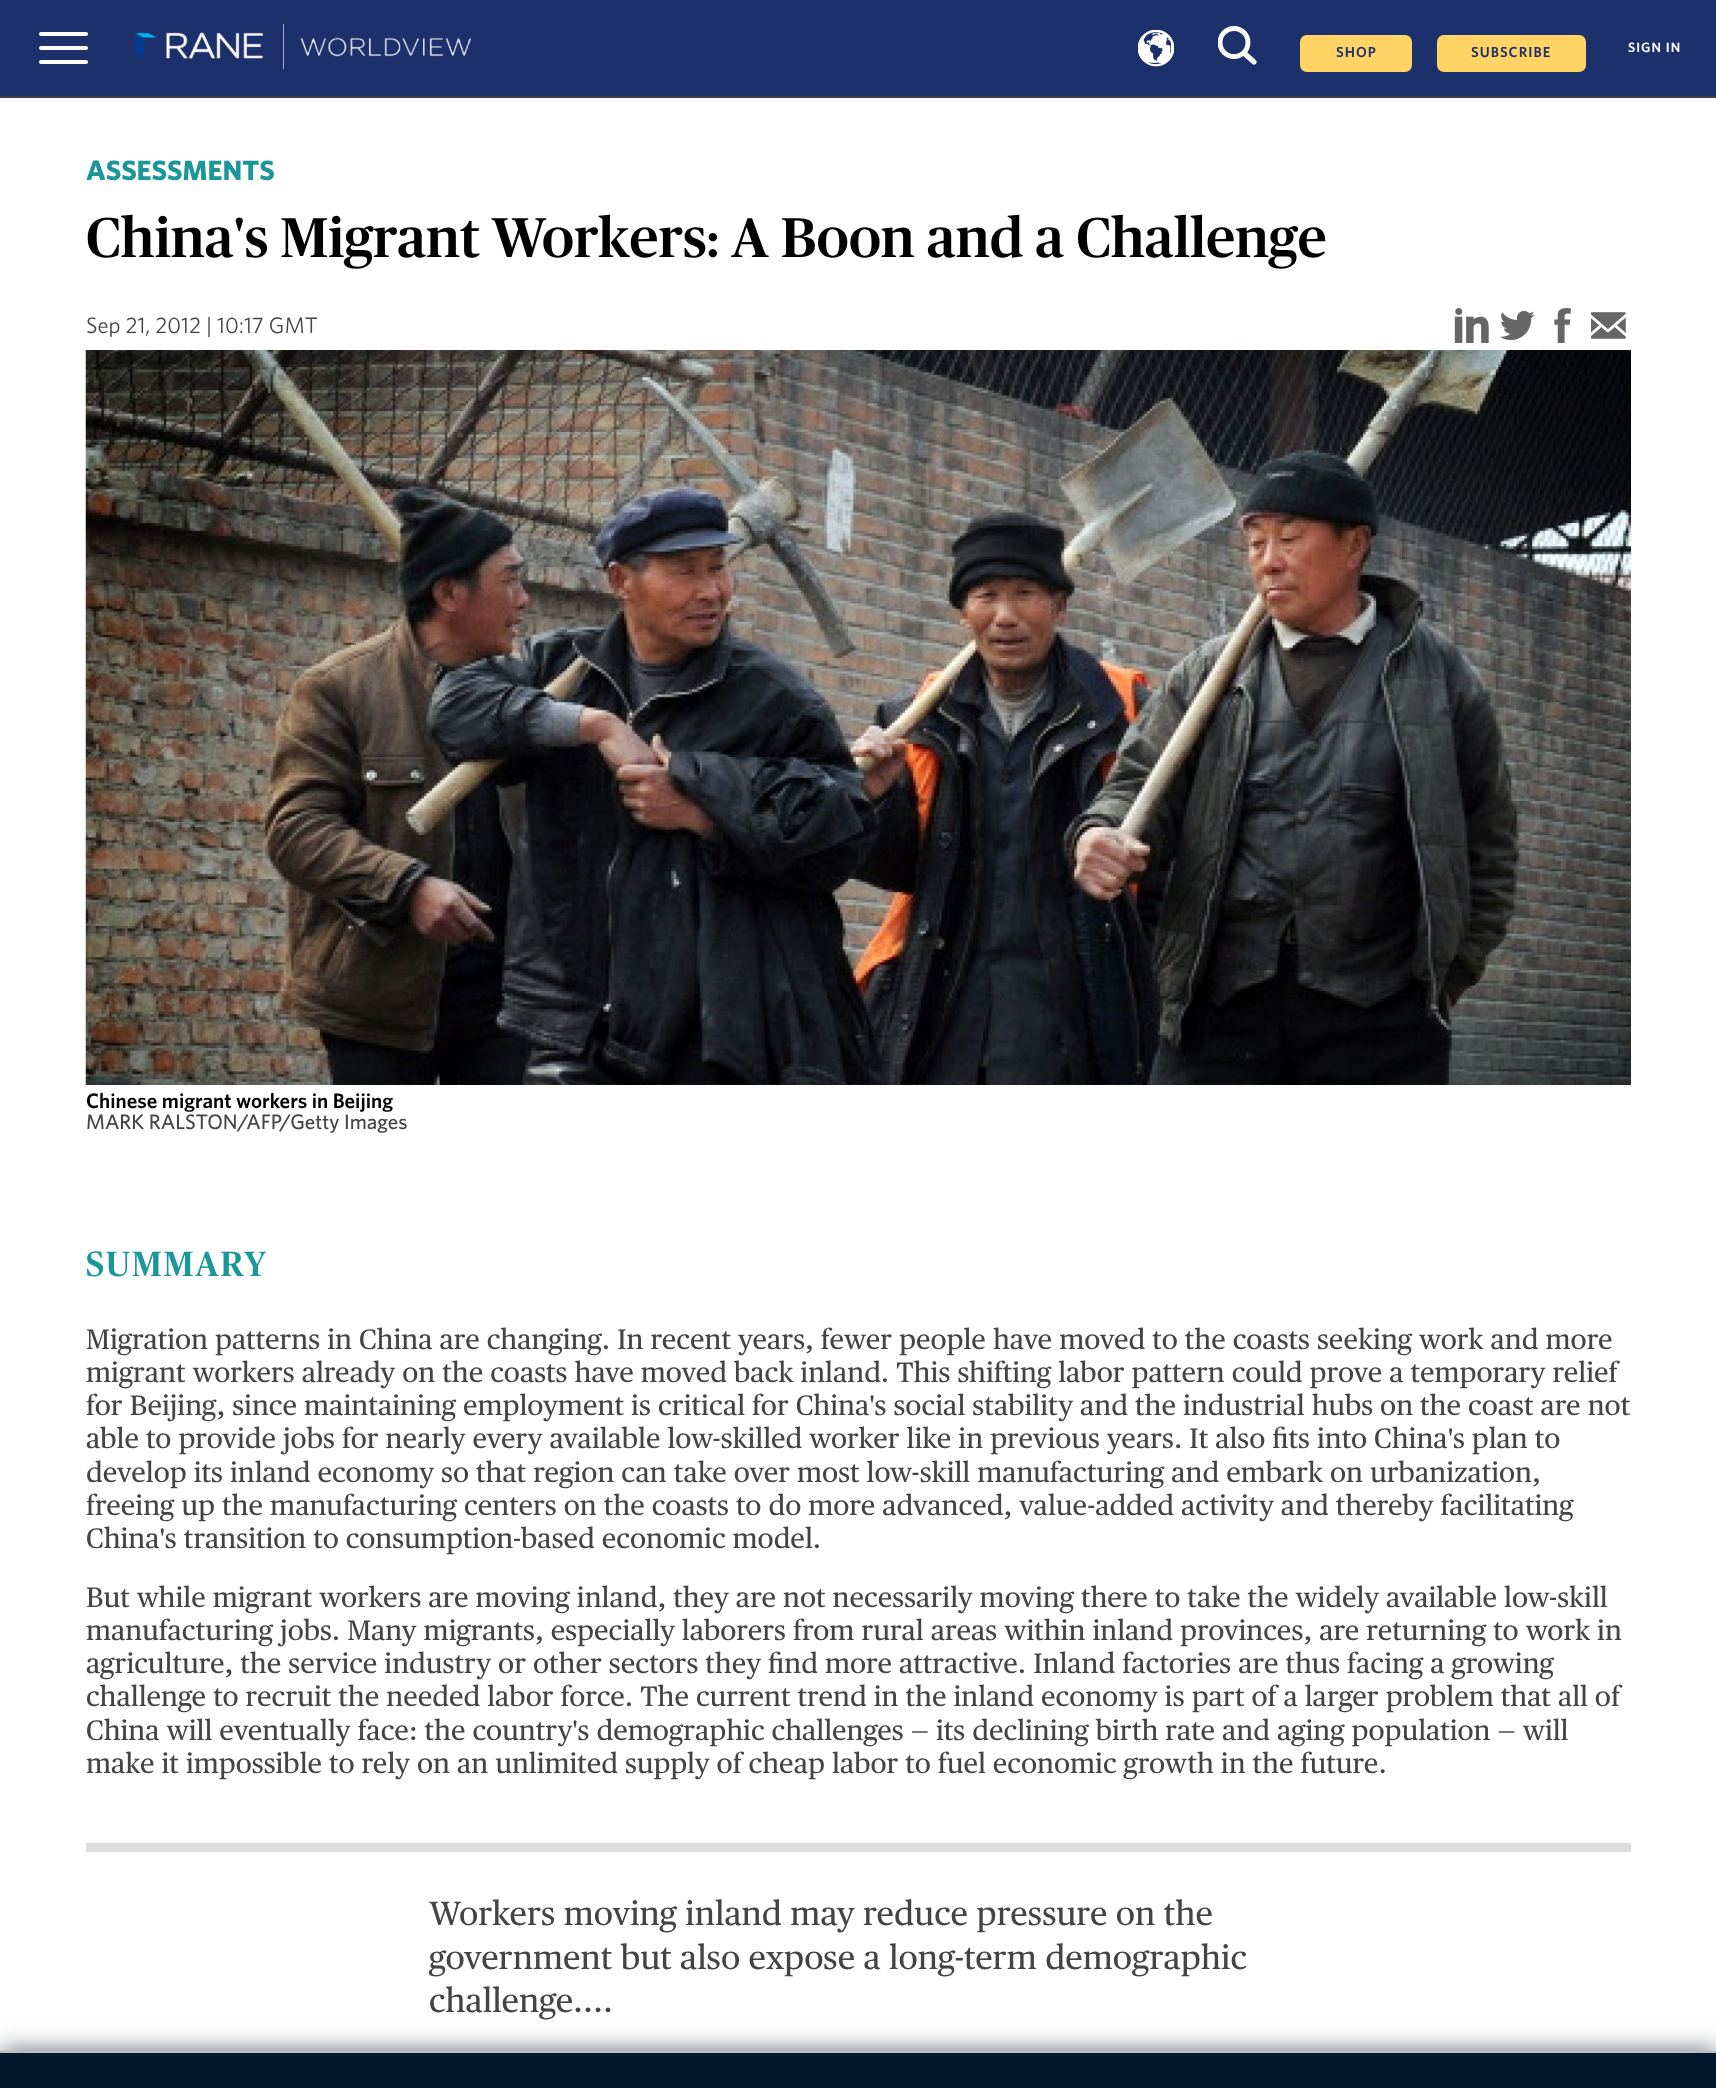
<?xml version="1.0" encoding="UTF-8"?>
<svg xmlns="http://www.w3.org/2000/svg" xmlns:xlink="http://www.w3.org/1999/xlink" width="1716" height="2088">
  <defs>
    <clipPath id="clip1"><rect x="1218" y="26" width="39" height="39" /></clipPath>
  </defs>
  <rect width="100%" height="100%" fill="#ffffff" />
  <rect width="1716" height="96" fill="#1c306b" />
  <rect y="96" width="1716" height="2" fill="#3d3d3d" />
  <rect x="39" y="46" width="49" height="4" rx="2" fill="#ffffff" />
  <rect x="39" y="32" width="49" height="4" rx="2" fill="#ffffff" />
  <rect x="39" y="60" width="49" height="4" rx="2" fill="#ffffff" />
  <image x="135" y="23" width="336" height="47" xlink:href="image1.png" />
  <image x="1138" y="30" width="36" height="37" xlink:href="image2.png" />
  <path d="M 1244.5 53.5 l 9.5 8.5" fill="none" stroke="#ffffff" stroke-width="5.2" stroke-linecap="round" stroke-linejoin="round" />
  <g clip-path="url(#clip1)">
    <circle cx="1234" cy="42.5" r="14" fill="none" stroke="#ffffff" stroke-width="4.9" />
  </g>
  <rect x="1300" y="35" width="112" height="37" rx="7" fill="#ffd464" />
  <rect x="1437" y="35" width="149" height="37" rx="7" fill="#ffd464" />
  <image x="1454" y="308" width="35" height="35" xlink:href="image3.png" />
  <image x="1500" y="311" width="35" height="29" xlink:href="image4.png" />
  <image x="1554" y="308" width="18" height="35" xlink:href="image5.png" />
  <image x="1591" y="312" width="35" height="27" xlink:href="image6.png" />
  <image x="85" y="350" width="1546" height="735" xlink:href="image7.png" />
  <rect x="86" y="1843" width="1545" height="9" fill="#dcdcdc" />
  <rect y="2051" width="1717" height="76" fill="#5c6975" filter="blur(13px)" />
  <rect y="2053" width="1716" height="35" fill="#02182d" />
  <rect y="2051" width="1716" height="2" fill="#bdbdbd" />
  <text x="1336" y="57" style="font-family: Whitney; font-size: 14.5px; font-weight: 600; letter-spacing: 1px; fill: #203067">SHOP</text>
  <text x="1471" y="57" style="font-family: Whitney; font-size: 14.5px; font-weight: 600; letter-spacing: 1px; fill: #203067">SUBSCRIBE</text>
  <text x="1628" y="52" style="font-family: Whitney; font-size: 13.5px; font-weight: 600; letter-spacing: 1px; fill: #ffffff">SIGN IN</text>
  <text x="86" y="180" style="font-family: Whitney; font-size: 28px; font-weight: bold; fill: #1b9699">ASSESSMENTS</text>
  <text x="86" y="257" style="font-family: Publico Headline; font-size: 56px; font-weight: 500; fill: #000000">China's Migrant Workers: A Boon and a Challenge</text>
  <text x="86" y="333" style="font-family: Whitney; font-size: 22.4px; fill: #444444">Sep 21, 2012 | 10:17 GMT</text>
  <text x="86" y="1108" style="font-family: Whitney; font-size: 21px; font-weight: 600; fill: #000000">Chinese migrant workers in Beijing</text>
  <text x="86" y="1129" style="font-family: Whitney; font-size: 21px; font-weight: 500; fill: #444444">MARK RALSTON/AFP/Getty Images</text>
  <text x="86" y="1276" style="font-family: Publico Headline; font-size: 35px; font-weight: 500; letter-spacing: 1.75px; fill: #1b9699">SUMMARY</text>
  <text x="86" y="1349" style="font-family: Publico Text; font-size: 28px; fill: #444444">Migration patterns in China are changing. In recent years, fewer people have moved to the coasts seeking work and more</text>
  <text x="86" y="1382" style="font-family: Publico Text; font-size: 28px; fill: #444444">migrant workers already on the coasts have moved back inland. This shifting labor pattern could prove a temporary relief</text>
  <text x="86" y="1415" style="font-family: Publico Text; font-size: 28px; fill: #444444">for Beijing, since maintaining employment is critical for China's social stability and the industrial hubs on the coast are not</text>
  <text x="86" y="1448" style="font-family: Publico Text; font-size: 28px; fill: #444444">able to provide jobs for nearly every available low-skilled worker like in previous years. It also fits into China's plan to</text>
  <text x="86" y="1482" style="font-family: Publico Text; font-size: 28px; fill: #444444">develop its inland economy so that region can take over most low-skill manufacturing and embark on urbanization,</text>
  <text x="86" y="1515" style="font-family: Publico Text; font-size: 28px; fill: #444444">freeing up the manufacturing centers on the coasts to do more advanced, value-added activity and thereby facilitating</text>
  <text x="86" y="1548" style="font-family: Publico Text; font-size: 28px; fill: #444444">China's transition to consumption-based economic model.</text>
  <text x="86" y="1607" style="font-family: Publico Text; font-size: 28px; fill: #444444">But while migrant workers are moving inland, they are not necessarily moving there to take the widely available low-skill</text>
  <text x="86" y="1640" style="font-family: Publico Text; font-size: 28px; fill: #444444">manufacturing jobs. Many migrants, especially laborers from rural areas within inland provinces, are returning to work in</text>
  <text x="86" y="1673" style="font-family: Publico Text; font-size: 28px; fill: #444444">agriculture, the service industry or other sectors they find more attractive. Inland factories are thus facing a growing</text>
  <text x="86" y="1706" style="font-family: Publico Text; font-size: 28px; fill: #444444">challenge to recruit the needed labor force. The current trend in the inland economy is part of a larger problem that all of</text>
  <text x="86" y="1740" style="font-family: Publico Text; font-size: 28px; fill: #444444">China will eventually face: the country's demographic challenges — its declining birth rate and aging population — will</text>
  <text x="86" y="1773" style="font-family: Publico Text; font-size: 28px; fill: #444444">make it impossible to rely on an unlimited supply of cheap labor to fuel economic growth in the future.</text>
  <text x="429" y="1925" style="font-family: Publico Text; font-size: 33.6px; fill: #444444">Workers moving inland may reduce pressure on the</text>
  <text x="429" y="1969" style="font-family: Publico Text; font-size: 33.6px; fill: #444444">government but also expose a long-term demographic</text>
  <text x="429" y="2012" style="font-family: Publico Text; font-size: 33.6px; fill: #444444">challenge....</text>
</svg>
